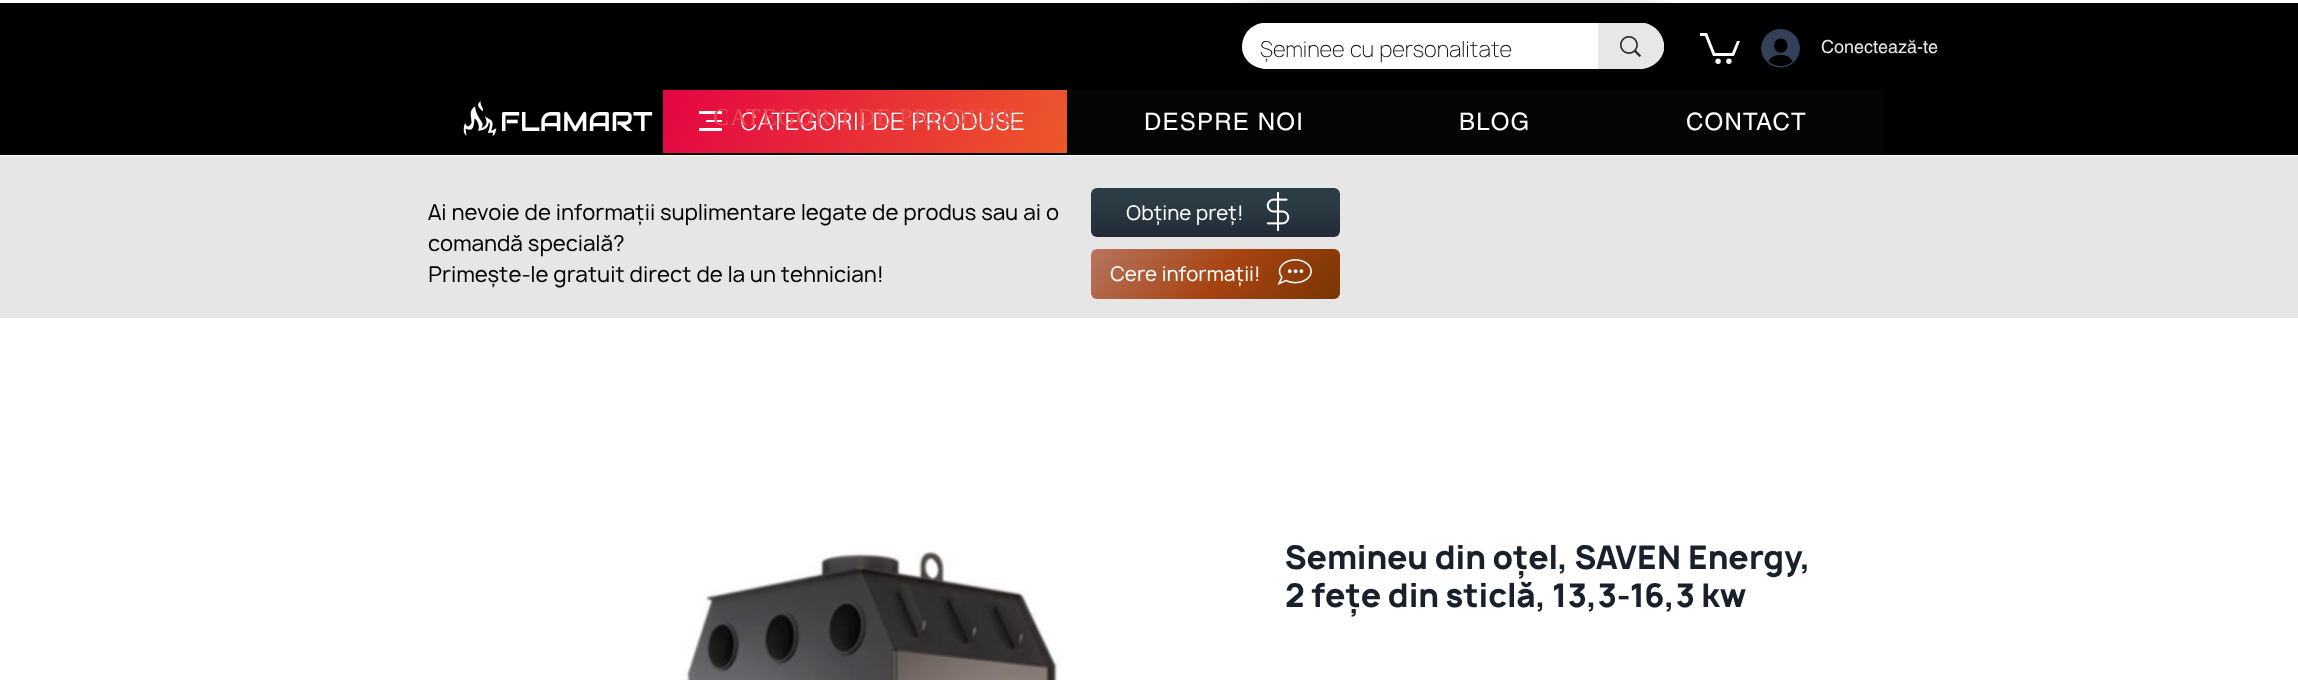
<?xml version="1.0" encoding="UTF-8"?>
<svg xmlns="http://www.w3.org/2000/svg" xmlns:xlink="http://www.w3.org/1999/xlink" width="2298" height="680">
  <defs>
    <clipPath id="clip1"><path d="M 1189 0 h 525 v 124 h -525 z m 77.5 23 h 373 c 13.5 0 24.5 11 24.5 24.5 c 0 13.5 -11 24.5 -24.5 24.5 h -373 c -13.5 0 -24.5 -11 -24.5 -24.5 c 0 -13.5 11 -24.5 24.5 -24.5 z" clip-rule="evenodd" /></clipPath>
    <linearGradient id="g1" gradientUnits="userSpaceOnUse" x1="685" y1="41" x2="1045" y2="202"><stop offset="0" stop-color="#e40544" /><stop offset="1" stop-color="#ed5829" /></linearGradient>
    <linearGradient id="g2" gradientUnits="userSpaceOnUse" x1="707" y1="217" x2="1023" y2="20"><stop offset="0" stop-color="#ff4500" stop-opacity="0.02" /><stop offset="0.13" stop-color="#f9c300" stop-opacity="0.02" /><stop offset="0.36" stop-color="#cac7ff" stop-opacity="0.02" /><stop offset="0.48" stop-color="#e4ebfc" stop-opacity="0.02" /><stop offset="0.59" stop-color="#8ebdca" stop-opacity="0.01" /><stop offset="0.76" stop-color="#8ebdca" stop-opacity="0.01" /><stop offset="0.86" stop-color="#cac7ff" stop-opacity="0.01" /><stop offset="0.99" stop-color="#8e88e1" stop-opacity="0.03" /></linearGradient>
    <linearGradient id="g3" gradientUnits="userSpaceOnUse" x1="1215" y1="187" x2="1215" y2="237"><stop offset="0.34" stop-color="#2b3c45" /><stop offset="1" stop-color="#222a35" /></linearGradient>
    <linearGradient id="g4" gradientUnits="userSpaceOnUse" x1="1130" y1="202" x2="1300" y2="345"><stop offset="0" stop-color="#b67560" /><stop offset="0.52" stop-color="#a84412" /><stop offset="1" stop-color="#7a3602" /></linearGradient>
  </defs>
  <rect width="100%" height="100%" fill="#ffffff" />
  <rect y="3" width="2298" height="152" fill="#000000" />
  <g clip-path="url(#clip1)">
    <rect x="1238" y="20" width="427" height="55" rx="27.5" fill="#000000" fill-opacity="0.6" filter="blur(16px)" />
  </g>
  <rect x="1254" y="69" width="398" height="3" fill="#050607" />
  <path d="M 1267 69 h 372 c 13 0 25 -10 25 -22 c 0 -12 -9 -22 -20 -24 h -382 c -12 2 -20 12 -20 24 c 0 12 11 22 25 22 z" fill="#ffffff" />
  <path d="M 1598 23 v 46 h 41 c 13 0 25 -10 25 -22 c 0 -12 -9 -22 -20 -24 z" fill="#e8e6e6" />
  <image x="1620" y="36" width="21" height="21" xlink:href="image1.png" />
  <path d="M 1740 41 l -6 15 h -21 l -8 -20 h -5 v -3 h 7 l 8 20 h 17 l 5 -12" fill="#ffffff" />
  <circle cx="1728.9" cy="61.3" r="2.7" fill="#ffffff" />
  <circle cx="1718.1" cy="61.3" r="2.7" fill="#ffffff" />
  <image x="1761" y="29" width="39" height="39" xlink:href="image2.png" />
  <image x="463" y="101" width="34" height="35" xlink:href="image3.png" />
  <rect x="663" y="90" width="404" height="63" fill="url(#g1)" />
  <rect x="1039" y="90" width="28" height="45" fill="url(#g2)" />
  <rect x="699" y="111" width="23" height="3" fill="#ffffff" />
  <rect x="706" y="120" width="16" height="2" fill="#ffffff" />
  <rect x="699" y="128" width="23" height="3" fill="#ffffff" />
  <rect x="1067" y="90" width="817" height="65" fill="#050505" />
  <rect y="156" width="2298" height="162" fill="#e6e6e6" />
  <rect x="1091" y="188" width="249" height="49" rx="6" fill="url(#g3)" />
  <image x="1266" y="191" width="24" height="41" xlink:href="image4.png" />
  <rect x="1091" y="249" width="249" height="50" rx="6" fill="url(#g4)" />
  <image x="1277" y="259" width="35" height="26" xlink:href="image5.png" />
  <image x="686" y="551" width="374" height="129" xlink:href="image6.png" />
  <text x="1260" y="57" style="font-family: Manrope; font-size: 21px; font-weight: 100; fill: #000000">Șeminee cu personalitate</text>
  <text x="1821" y="53" style="font-family: helvetica; font-size: 18px; fill: #e8e6e6">Conectează-te</text>
  <text x="500" y="131" style="font-family: Audiowide; font-size: 27px; fill: #ffffff">FLAMART</text>
  <text x="740" y="130" style="font-family: helvetica; font-size: 24px; font-weight: 300; fill: #ffffff">CATEGORII DE PRODUSE</text>
  <text x="713" y="125" style="font-family: Liberation Serif; font-size: 24px; letter-spacing: 1.2px; fill: #eb5057">CATEGORII DE PRODUSE</text>
  <text x="1144" y="130" style="font-family: helvetica; font-size: 24px; letter-spacing: 1.2px; fill: #ffffff">DESPRE NOI</text>
  <text x="1459" y="130" style="font-family: helvetica; font-size: 24px; letter-spacing: 1.2px; fill: #ffffff">BLOG</text>
  <text x="1686" y="130" style="font-family: helvetica; font-size: 24px; letter-spacing: 1.2px; fill: #ffffff">CONTACT</text>
  <text x="428" y="220" style="font-family: Manrope; font-size: 21px; fill: #000000">Ai nevoie de informații suplimentare legate de produs sau ai o</text>
  <text x="428" y="251" style="font-family: Manrope; font-size: 21px; fill: #000000">comandă specială?</text>
  <text x="428" y="282" style="font-family: Manrope; font-size: 21px; fill: #000000">Primește-le gratuit direct de la un tehnician!</text>
  <text x="1126" y="220" style="font-family: Manrope; font-size: 19.5px; fill: #ffffff">Obține preț!</text>
  <text x="1110" y="281" style="font-family: Manrope; font-size: 19.5px; fill: #ffffff">Cere informații!</text>
  <text x="1285" y="569" style="font-family: Manrope; font-size: 31.5px; font-weight: bold; fill: #18202b">Semineu din oțel, SAVEN Energy,</text>
  <text x="1285" y="607" style="font-family: Manrope; font-size: 31.5px; font-weight: bold; fill: #18202b">2 fețe din sticlă, 13,3-16,3 kw</text>
</svg>
